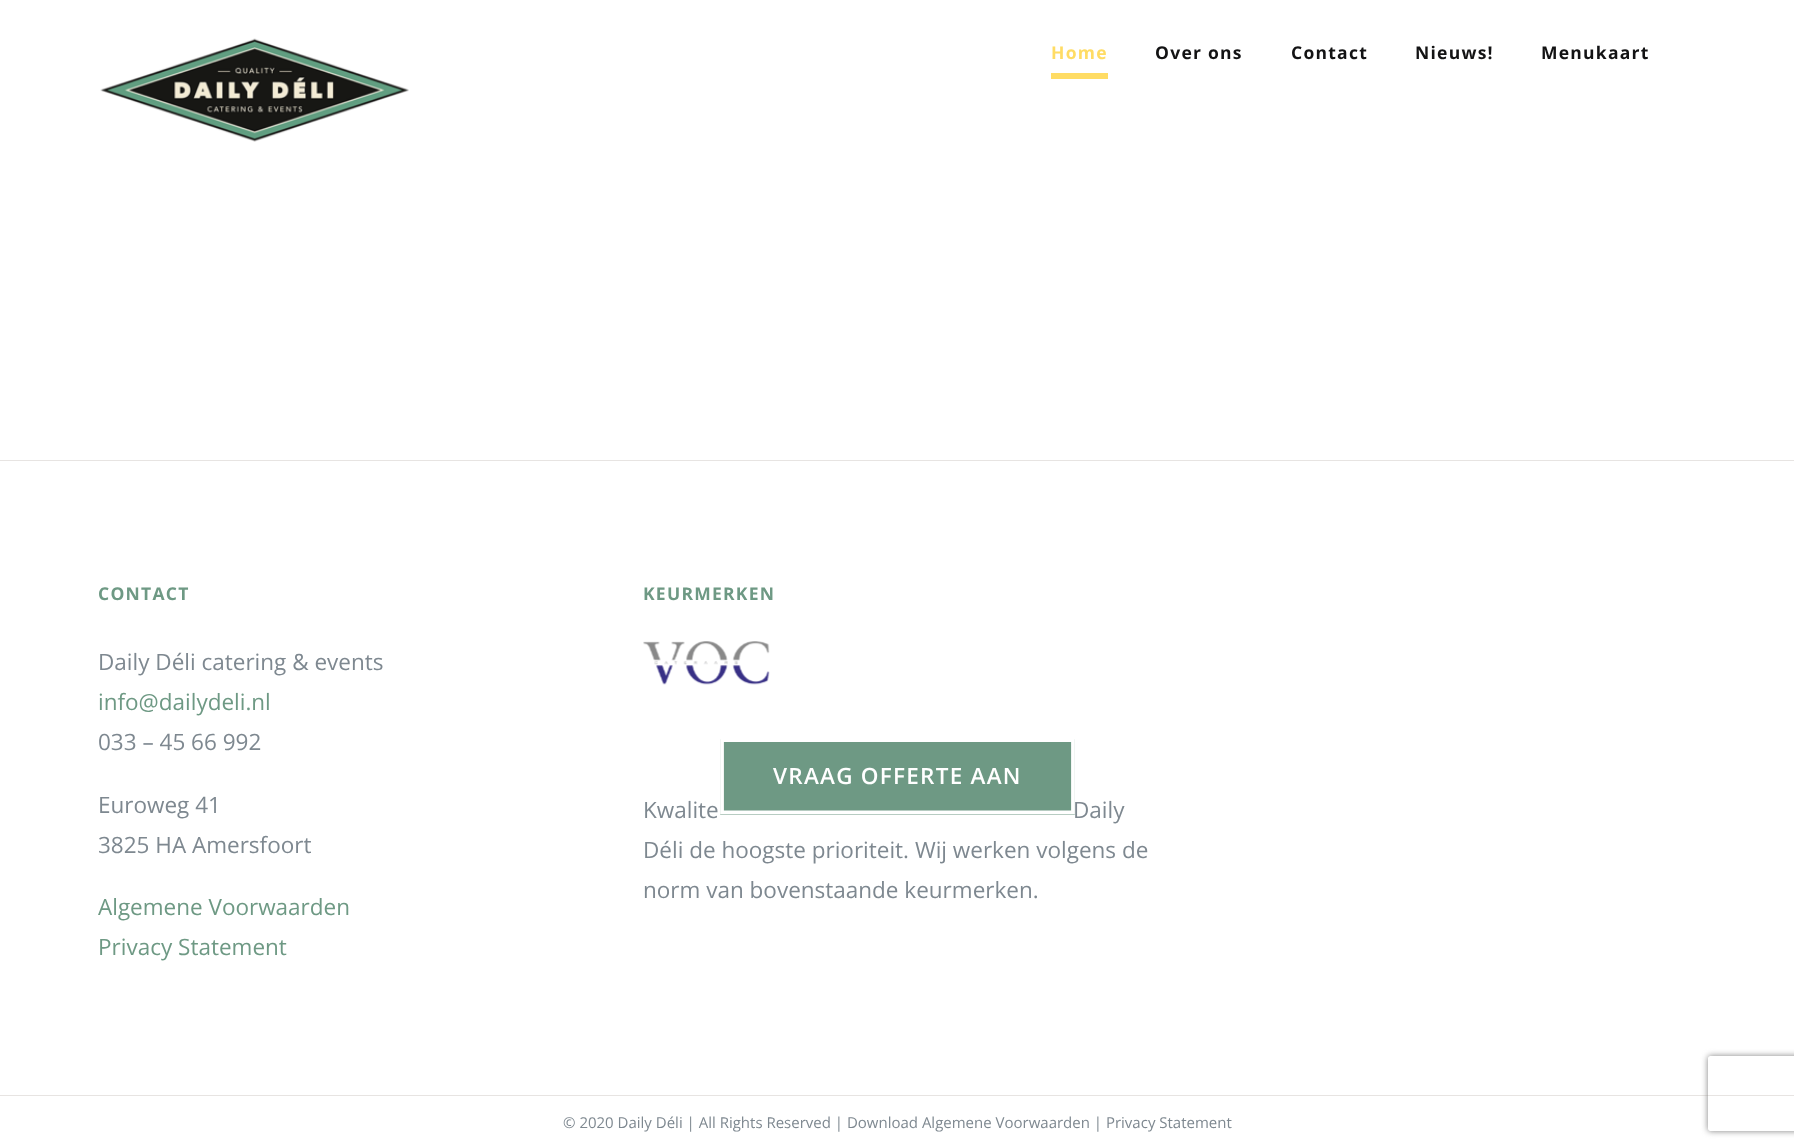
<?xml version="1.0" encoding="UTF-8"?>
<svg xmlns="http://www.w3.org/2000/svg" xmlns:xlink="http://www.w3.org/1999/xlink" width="1794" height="1148">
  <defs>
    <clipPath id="clip1"><path d="M 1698 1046 h 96 v 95 h -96 z m 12.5 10 h 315 c 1.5 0 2.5 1 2.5 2.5 v 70 c 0 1.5 -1 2.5 -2.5 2.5 h -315 c -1.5 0 -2.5 -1 -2.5 -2.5 v -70 c 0 -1.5 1 -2.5 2.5 -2.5 z" clip-rule="evenodd" /></clipPath>
  </defs>
  <rect width="100%" height="100%" fill="#ffffff" />
  <image x="100" y="38" width="309" height="104" xlink:href="image1.png" />
  <rect x="1051" y="73" width="57" height="6" fill="#ffdc64" />
  <rect y="460" width="1794" height="1" fill="#e7e4e2" />
  <image x="643" y="641" width="127" height="44" xlink:href="image2.png" />
  <rect y="1095" width="1794" height="1" fill="#e7e4e2" />
  <rect x="720" y="739" width="355" height="76" rx="1" fill="#6e9984" />
  <path d="M 722 740 h 351 v 72.5 h -351 z" fill="none" stroke="#ffffff" stroke-width="3.8" />
  <g clip-path="url(#clip1)">
    <rect x="1708" y="1056" width="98" height="75" rx="2.5" fill="#808080" filter="blur(3px)" />
  </g>
  <text x="1051" y="59" style="font-family: Open Sans; font-size: 17.5px; font-weight: bold; letter-spacing: 1.25px; fill: #ffdc64">Home</text>
  <text x="1155" y="59" style="font-family: Open Sans; font-size: 17.5px; font-weight: bold; letter-spacing: 1.25px; fill: #131314">Over ons</text>
  <text x="1291" y="59" style="font-family: Open Sans; font-size: 17.5px; font-weight: bold; letter-spacing: 1.25px; fill: #131314">Contact</text>
  <text x="1415" y="59" style="font-family: Open Sans; font-size: 17.5px; font-weight: bold; letter-spacing: 1.25px; fill: #131314">Nieuws!</text>
  <text x="1541" y="59" style="font-family: Open Sans; font-size: 17.5px; font-weight: bold; letter-spacing: 1.25px; fill: #131314">Menukaart</text>
  <text x="98" y="600" style="font-family: Open Sans; font-size: 17.5px; font-weight: bold; letter-spacing: 1.25px; fill: #6e9984">CONTACT</text>
  <text x="98" y="670" style="font-family: Open Sans; font-size: 22.5px; fill: #7e8890">Daily Déli catering &amp; events</text>
  <text x="98" y="710" style="font-family: Open Sans; font-size: 22.5px; fill: #6e9984">info@dailydeli.nl</text>
  <text x="98" y="750" style="font-family: Open Sans; font-size: 22.5px; fill: #7e8890">033 – 45 66 992</text>
  <text x="98" y="813" style="font-family: Open Sans; font-size: 22.5px; fill: #7e8890">Euroweg 41</text>
  <text x="98" y="853" style="font-family: Open Sans; font-size: 22.5px; fill: #7e8890">3825 HA Amersfoort</text>
  <text x="98" y="915" style="font-family: Open Sans; font-size: 22.5px; fill: #6e9984">Algemene Voorwaarden</text>
  <text x="98" y="955" style="font-family: Open Sans; font-size: 22.5px; fill: #6e9984">Privacy Statement</text>
  <text x="643" y="600" style="font-family: Open Sans; font-size: 17.5px; font-weight: bold; letter-spacing: 1.25px; fill: #6e9984">KEURMERKEN</text>
  <text x="643" y="818" style="font-family: Open Sans; font-size: 22.5px; fill: #7e8890">Kwalite</text>
  <text x="1073" y="818" style="font-family: Open Sans; font-size: 22.5px; fill: #7e8890">Daily</text>
  <text x="643" y="858" style="font-family: Open Sans; font-size: 22.5px; fill: #7e8890">Déli de hoogste prioriteit. Wij werken volgens de</text>
  <text x="643" y="898" style="font-family: Open Sans; font-size: 22.5px; fill: #7e8890">norm van bovenstaande keurmerken.</text>
  <text x="563" y="1128" style="font-family: Open Sans; font-size: 15px; fill: #7e8890">© 2020 Daily Déli | All Rights Reserved | Download Algemene Voorwaarden | Privacy Statement</text>
  <text x="773" y="784" style="font-family: Open Sans; font-size: 22.5px; font-weight: 600; letter-spacing: 1.25px; fill: #ffffff">VRAAG OFFERTE AAN</text>
</svg>
